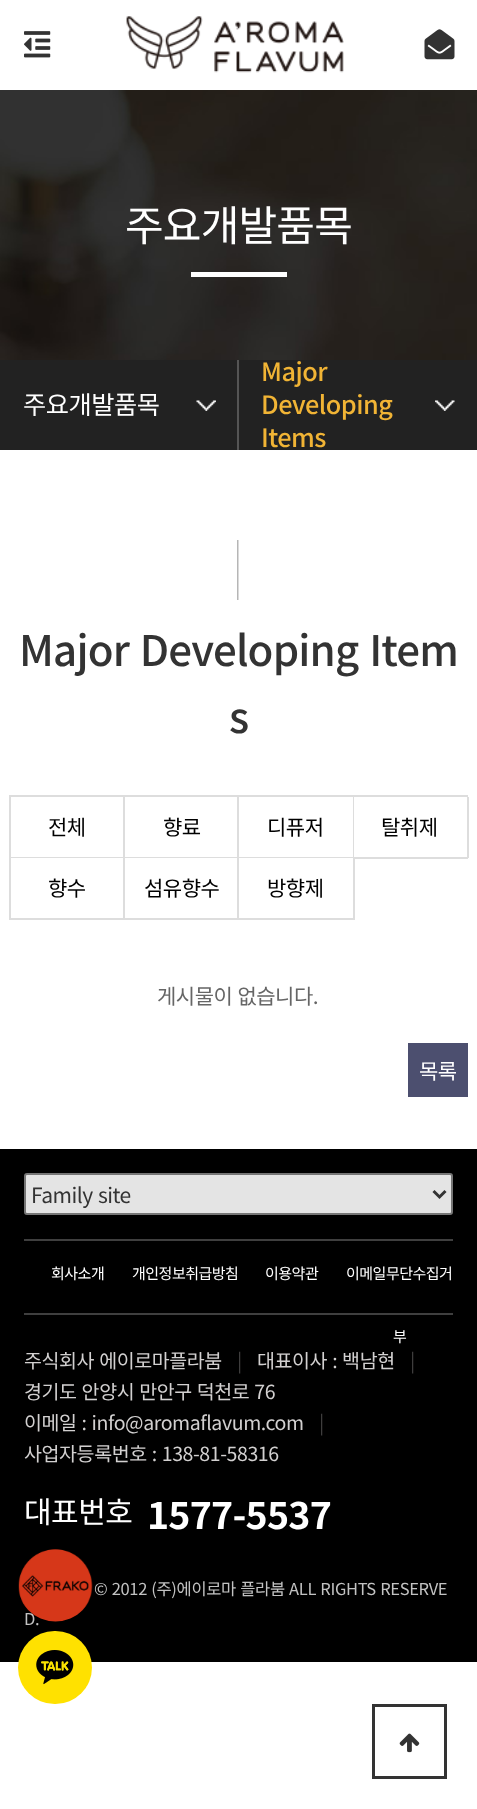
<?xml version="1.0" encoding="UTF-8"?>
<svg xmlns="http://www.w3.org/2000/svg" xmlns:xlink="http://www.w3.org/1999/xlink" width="477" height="1809">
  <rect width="100%" height="100%" fill="#ffffff" />
  <image x="126" y="16" width="218" height="57" xlink:href="image1.png" />
  <image x="24" y="31" width="27" height="27" xlink:href="image2.png" />
  <image x="424" y="29" width="31" height="31" xlink:href="image3.png" />
  <image x="0" y="90" width="477" height="270" xlink:href="image4.png" />
  <rect x="191" y="272" width="96" height="5" fill="#ffffff" />
  <rect y="360" width="477" height="90" fill="#222222" />
  <rect x="237" y="360" width="2" height="90" fill="#555555" />
  <image x="196" y="400" width="20" height="11" xlink:href="image5.png" />
  <image x="435" y="400" width="20" height="11" xlink:href="image6.png" />
  <image x="237" y="540" width="2" height="60" xlink:href="image7.png" />
  <rect x="9" y="795" width="459" height="2" fill="#dddddd" />
  <rect x="9" y="795" width="2" height="125" fill="#dddddd" />
  <rect x="123" y="797" width="2" height="123" fill="#dddddd" />
  <rect x="11" y="857" width="114" height="1" fill="#dddddd" />
  <rect x="237" y="797" width="2" height="123" fill="#dddddd" />
  <rect x="125" y="857" width="114" height="1" fill="#dddddd" />
  <rect x="353" y="797" width="1" height="61" fill="#dddddd" />
  <rect x="239" y="857" width="115" height="1" fill="#dddddd" />
  <rect x="467" y="797" width="2" height="61" fill="#dddddd" />
  <rect x="354" y="857" width="114" height="2" fill="#dddddd" />
  <rect x="11" y="918" width="228" height="2" fill="#dddddd" />
  <rect x="353" y="858" width="2" height="62" fill="#dddddd" />
  <rect x="239" y="918" width="115" height="2" fill="#dddddd" />
  <rect x="408" y="1043" width="60" height="54" fill="#4c4f6f" />
  <rect y="1149" width="477" height="513" fill="#000000" />
  <rect x="24" y="1239" width="429" height="2" fill="#3f3f3f" />
  <rect x="24" y="1313" width="429" height="2" fill="#3f3f3f" />
  <rect x="25" y="1174" width="427" height="40" rx="2" fill="#e4e4e4" stroke="#767676" stroke-width="2" />
  <path d="M 433.5 1191 l 6 6 l 6 -6" fill="none" stroke="#333333" stroke-width="3" />
  <rect x="18" y="1631" width="74" height="73" rx="36.5" fill="#ffe100" />
  <image x="36" y="1650" width="38" height="35" xlink:href="image9.png" />
  <rect x="373.5" y="1705.5" width="72" height="72" fill="none" stroke="#333333" stroke-width="3" />
  <image x="399" y="1733" width="21" height="20" xlink:href="image10.png" />
  <text x="125" y="241" style="font-family: Noto Sans KR; font-size: 42px; letter-spacing: -0.8px; fill: #ffffff">주요개발품목</text>
  <text x="23" y="414" style="font-family: Noto Sans KR; font-size: 25.25px; letter-spacing: -0.5px; fill: #ffffff">주요개발품목</text>
  <text x="261" y="381" style="font-family: Noto Sans KR; font-size: 25.25px; font-weight: 500; letter-spacing: -0.5px; fill: #f1b435">Major</text>
  <text x="261" y="414" style="font-family: Noto Sans KR; font-size: 25.25px; font-weight: 500; letter-spacing: -0.5px; fill: #f1b435">Developing</text>
  <text x="261" y="447" style="font-family: Noto Sans KR; font-size: 25.25px; font-weight: 500; letter-spacing: -0.5px; fill: #f1b435">Items</text>
  <text x="19" y="666" word-spacing="2" style="font-family: Noto Sans KR; font-size: 42px; font-weight: 500; letter-spacing: -0.8px; fill: #333333">Major Developing Item</text>
  <text x="229" y="733" style="font-family: Noto Sans KR; font-size: 42px; font-weight: 500; letter-spacing: -0.8px; fill: #333333">s</text>
  <text x="48" y="835" style="font-family: Noto Sans KR; font-size: 21px; letter-spacing: -0.5px; fill: #000000">전체</text>
  <text x="163" y="835" style="font-family: Noto Sans KR; font-size: 21px; letter-spacing: -0.5px; fill: #000000">향료</text>
  <text x="267" y="835" style="font-family: Noto Sans KR; font-size: 21px; letter-spacing: -0.5px; fill: #000000">디퓨저</text>
  <text x="381" y="835" style="font-family: Noto Sans KR; font-size: 21px; letter-spacing: -0.5px; fill: #000000">탈취제</text>
  <text x="48" y="896" style="font-family: Noto Sans KR; font-size: 21px; letter-spacing: -0.5px; fill: #000000">향수</text>
  <text x="144" y="896" style="font-family: Noto Sans KR; font-size: 21px; letter-spacing: -0.5px; fill: #000000">섬유향수</text>
  <text x="267" y="896" style="font-family: Noto Sans KR; font-size: 21px; letter-spacing: -0.5px; fill: #000000">방향제</text>
  <text x="157" y="1004" word-spacing="1" style="font-family: Noto Sans KR; font-size: 21px; letter-spacing: -0.5px; fill: #666666">게시물이 없습니다.</text>
  <text x="419" y="1079" style="font-family: Noto Sans KR; font-size: 21px; letter-spacing: -0.5px; fill: #ffffff">목록</text>
  <text x="31" y="1203" word-spacing="1" style="font-family: Noto Sans KR; font-size: 21px; letter-spacing: -0.5px; fill: #333333">Family site</text>
  <text x="51" y="1279" style="font-family: Noto Sans KR; font-size: 15px; letter-spacing: -0.5px; fill: #ffffff">회사소개</text>
  <text x="132" y="1279" style="font-family: Noto Sans KR; font-size: 15px; letter-spacing: -0.5px; fill: #ffffff">개인정보취급방침</text>
  <text x="265" y="1279" style="font-family: Noto Sans KR; font-size: 15px; letter-spacing: -0.5px; fill: #ffffff">이용약관</text>
  <text x="346" y="1279" style="font-family: Noto Sans KR; font-size: 15px; letter-spacing: -0.5px; fill: #ffffff">이메일무단수집거</text>
  <text x="393" y="1342" style="font-family: Noto Sans KR; font-size: 15px; letter-spacing: -0.5px; fill: #ffffff">부</text>
  <text x="24" y="1368" word-spacing="1" style="font-family: Noto Sans KR; font-size: 19.5px; letter-spacing: -0.4px; fill: #d2d0d0">주식회사 에이로마플라붐</text>
  <text x="237" y="1368" style="font-family: Noto Sans KR; font-size: 19.5px; letter-spacing: -0.4px; fill: #3f3e3e">|</text>
  <text x="257" y="1368" word-spacing="1" style="font-family: Noto Sans KR; font-size: 19.5px; letter-spacing: -0.4px; fill: #d2d0d0">대표이사 : 백남현</text>
  <text x="410" y="1368" style="font-family: Noto Sans KR; font-size: 19.5px; letter-spacing: -0.4px; fill: #3f3e3e">|</text>
  <text x="24" y="1399" word-spacing="1" style="font-family: Noto Sans KR; font-size: 19.5px; letter-spacing: -0.4px; fill: #d2d0d0">경기도 안양시 만안구 덕천로 76</text>
  <text x="24" y="1430" word-spacing="1" style="font-family: Noto Sans KR; font-size: 19.5px; letter-spacing: -0.4px; fill: #d2d0d0">이메일 : info@aromaflavum.com</text>
  <text x="319" y="1430" style="font-family: Noto Sans KR; font-size: 19.5px; letter-spacing: -0.4px; fill: #3f3e3e">|</text>
  <text x="24" y="1461" word-spacing="1" style="font-family: Noto Sans KR; font-size: 19.5px; letter-spacing: -0.4px; fill: #d2d0d0">사업자등록번호 : 138-81-58316</text>
  <text x="24" y="1523" style="font-family: Noto Sans KR; font-size: 30px; letter-spacing: -0.5px; fill: #ffffff">대표번호</text>
  <text x="147" y="1529" style="font-family: Noto Sans KR; font-size: 37.5px; font-weight: bold; letter-spacing: -0.75px; fill: #ffffff">1577-5537</text>
  <text x="94" y="1595" word-spacing="1" style="font-family: Noto Sans KR; font-size: 16.5px; letter-spacing: -0.35px; fill: #c2c2c2">© 2012 (주)에이로마 플라붐 ALL RIGHTS RESERVE</text>
  <text x="24" y="1625" style="font-family: Noto Sans KR; font-size: 16.5px; letter-spacing: -0.35px; fill: #c2c2c2">D.</text>
  <image x="18" y="1549" width="75" height="73" xlink:href="image8.png" />
</svg>
